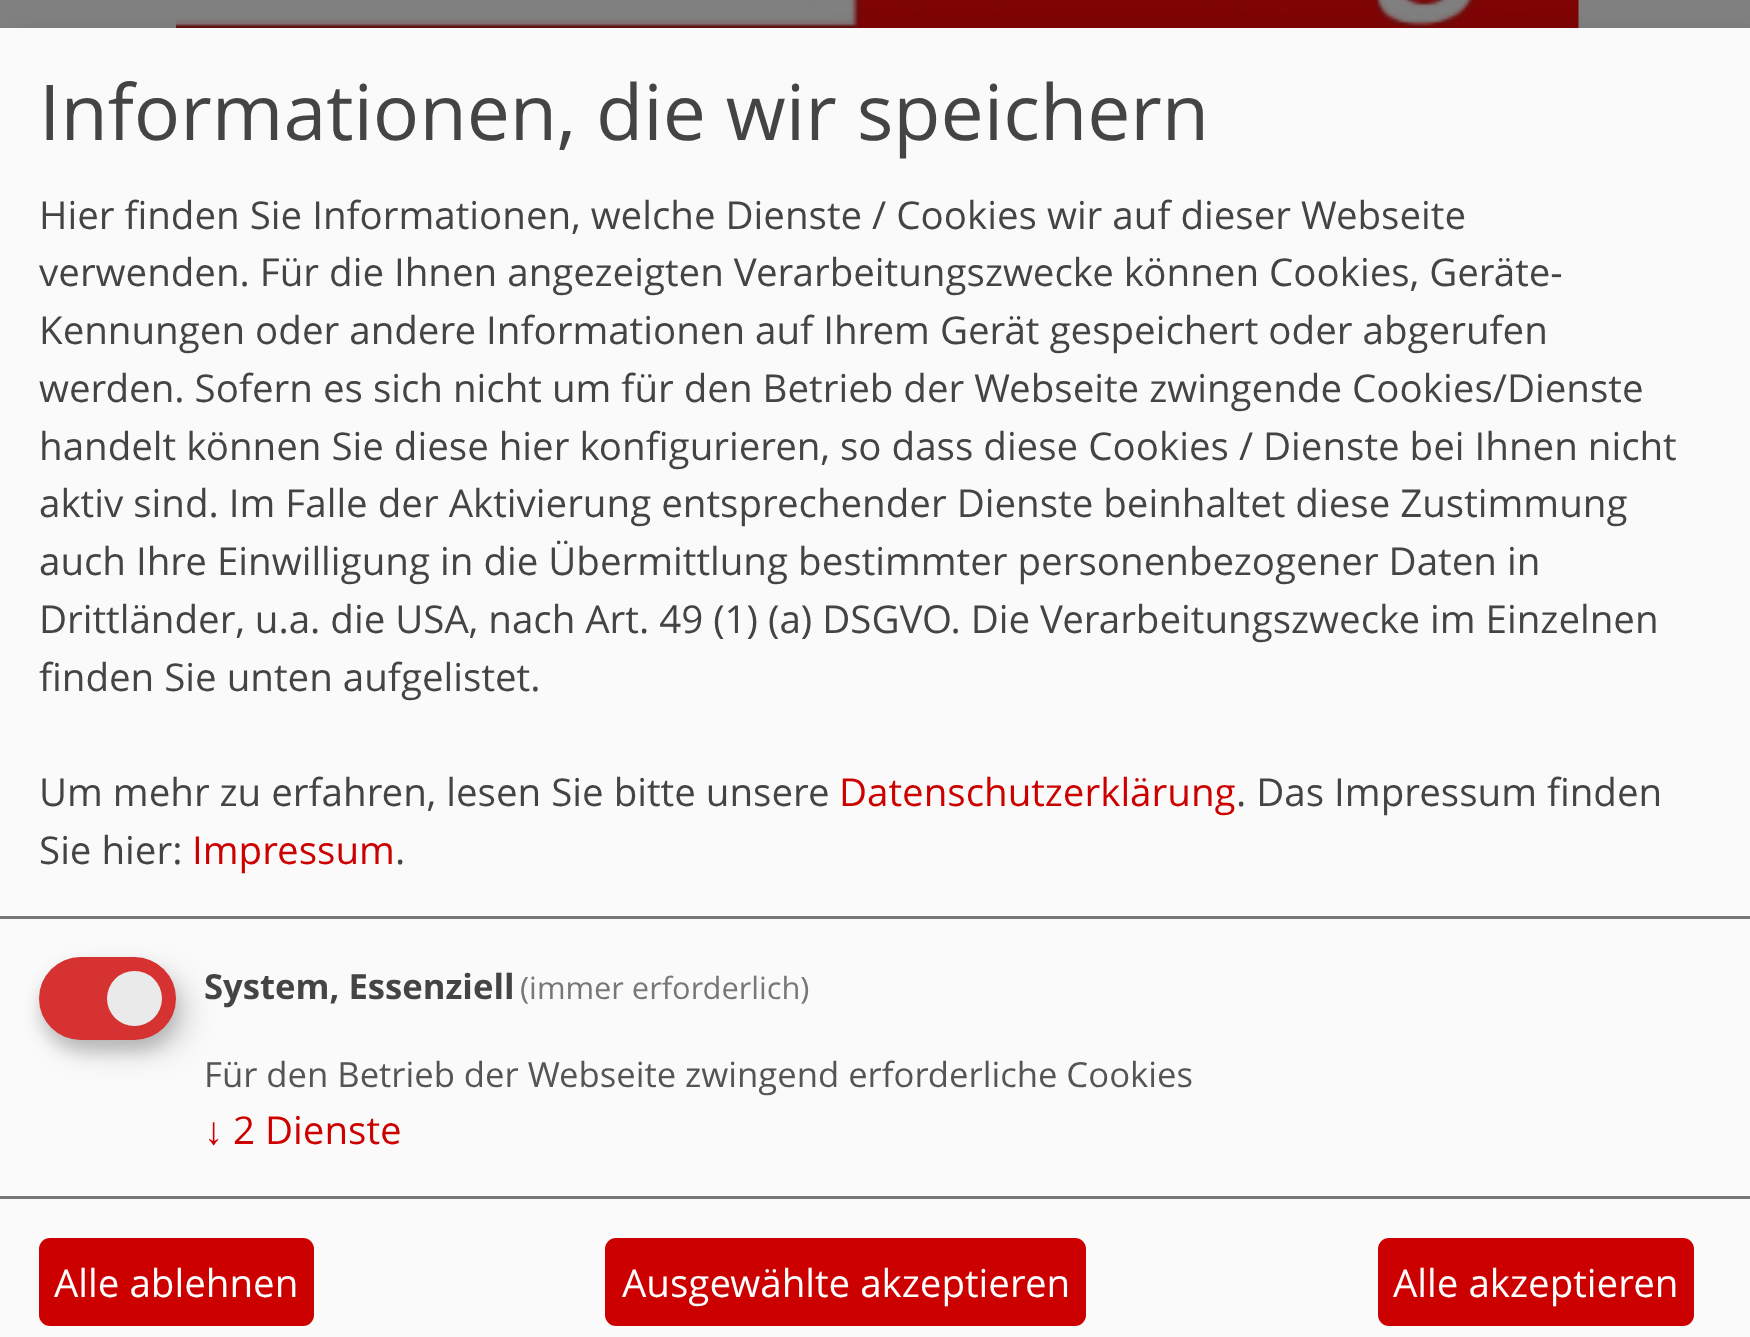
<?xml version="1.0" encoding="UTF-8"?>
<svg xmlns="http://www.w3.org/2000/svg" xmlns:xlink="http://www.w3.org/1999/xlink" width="1750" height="1337">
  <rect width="100%" height="100%" fill="#808080" />
  <image x="176" y="0" width="1403" height="28" xlink:href="image1.png" />
  <rect x="14" y="41" width="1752" height="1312" fill="#000000" fill-opacity="0.19" filter="blur(14px)" />
  <rect y="28" width="1750" height="1309" fill="#fafafa" />
  <rect y="916" width="1750" height="3" fill="#777777" />
  <rect x="52" y="971" width="138" height="82" rx="41" fill="#000000" fill-opacity="0.15" filter="blur(14px)" />
  <rect x="39" y="968" width="137" height="83" rx="41.5" fill="#323232" fill-opacity="0.2" filter="blur(8px)" />
  <rect x="39" y="957" width="137" height="83" rx="41.5" fill="#d63232" />
  <circle cx="134.5" cy="998.5" r="27.5" fill="#eaeaea" />
  <rect y="1196" width="1750" height="3" fill="#777777" />
  <rect x="39" y="1238" width="275" height="88" rx="11" fill="#cd0000" />
  <rect x="605" y="1238" width="481" height="88" rx="11" fill="#cd0000" />
  <rect x="1378" y="1238" width="316" height="88" rx="11" fill="#cd0000" />
  <text x="39" y="140" style="font-family: Open Sans; font-size: 77px; fill: #444444">Informationen, die wir speichern</text>
  <text x="39" y="229" style="font-family: Open Sans; font-size: 38.5px; fill: #444444">Hier finden Sie Informationen, welche Dienste / Cookies wir auf dieser Webseite</text>
  <text x="39" y="286" style="font-family: Open Sans; font-size: 38.5px; fill: #444444">verwenden. Für die Ihnen angezeigten Verarbeitungszwecke können Cookies, Geräte-</text>
  <text x="39" y="344" style="font-family: Open Sans; font-size: 38.5px; fill: #444444">Kennungen oder andere Informationen auf Ihrem Gerät gespeichert oder abgerufen</text>
  <text x="39" y="402" style="font-family: Open Sans; font-size: 38.5px; fill: #444444">werden. Sofern es sich nicht um für den Betrieb der Webseite zwingende Cookies/Dienste</text>
  <text x="39" y="460" style="font-family: Open Sans; font-size: 38.5px; fill: #444444">handelt können Sie diese hier konfigurieren, so dass diese Cookies / Dienste bei Ihnen nicht</text>
  <text x="39" y="517" style="font-family: Open Sans; font-size: 38.5px; fill: #444444">aktiv sind. Im Falle der Aktivierung entsprechender Dienste beinhaltet diese Zustimmung</text>
  <text x="39" y="575" style="font-family: Open Sans; font-size: 38.5px; fill: #444444">auch Ihre Einwilligung in die Übermittlung bestimmter personenbezogener Daten in</text>
  <text x="39" y="633" style="font-family: Open Sans; font-size: 38.5px; fill: #444444">Drittländer, u.a. die USA, nach Art. 49 (1) (a) DSGVO. Die Verarbeitungszwecke im Einzelnen</text>
  <text x="39" y="691" style="font-family: Open Sans; font-size: 38.5px; fill: #444444">finden Sie unten aufgelistet.</text>
  <text x="39" y="806" style="font-family: Open Sans; font-size: 38.5px; fill: #444444">Um mehr zu erfahren, lesen Sie bitte unsere</text>
  <text x="839" y="806" style="font-family: Open Sans; font-size: 38.5px; fill: #cd0000">Datenschutzerklärung</text>
  <text x="1236" y="806" style="font-family: Open Sans; font-size: 38.5px; fill: #444444">. Das Impressum finden</text>
  <text x="39" y="864" style="font-family: Open Sans; font-size: 38.5px; fill: #444444">Sie hier:</text>
  <text x="192" y="864" style="font-family: Open Sans; font-size: 38.5px; fill: #cd0000">Impressum</text>
  <text x="395" y="864" style="font-family: Open Sans; font-size: 38.5px; fill: #444444">.</text>
  <text x="204" y="999" style="font-family: Open Sans; font-size: 34.65px; font-weight: bold; fill: #444444">System, Essenziell</text>
  <text x="520" y="999" style="font-family: Open Sans; font-size: 30.75px; fill: #777777">(immer erforderlich)</text>
  <text x="204" y="1087" style="font-family: Open Sans; font-size: 34.65px; fill: #555555">Für den Betrieb der Webseite zwingend erforderliche Cookies</text>
  <text x="204" y="1144" style="font-family: Liberation Sans; font-size: 38.5px; fill: #cd0000">↓</text>
  <text x="233" y="1144" style="font-family: Open Sans; font-size: 38.5px; fill: #cd0000">2 Dienste</text>
  <text x="54" y="1297" style="font-family: Open Sans; font-size: 38.5px; fill: #ffffff">Alle ablehnen</text>
  <text x="622" y="1297" style="font-family: Open Sans; font-size: 38.5px; fill: #ffffff">Ausgewählte akzeptieren</text>
  <text x="1393" y="1297" style="font-family: Open Sans; font-size: 38.5px; fill: #ffffff">Alle akzeptieren</text>
</svg>
